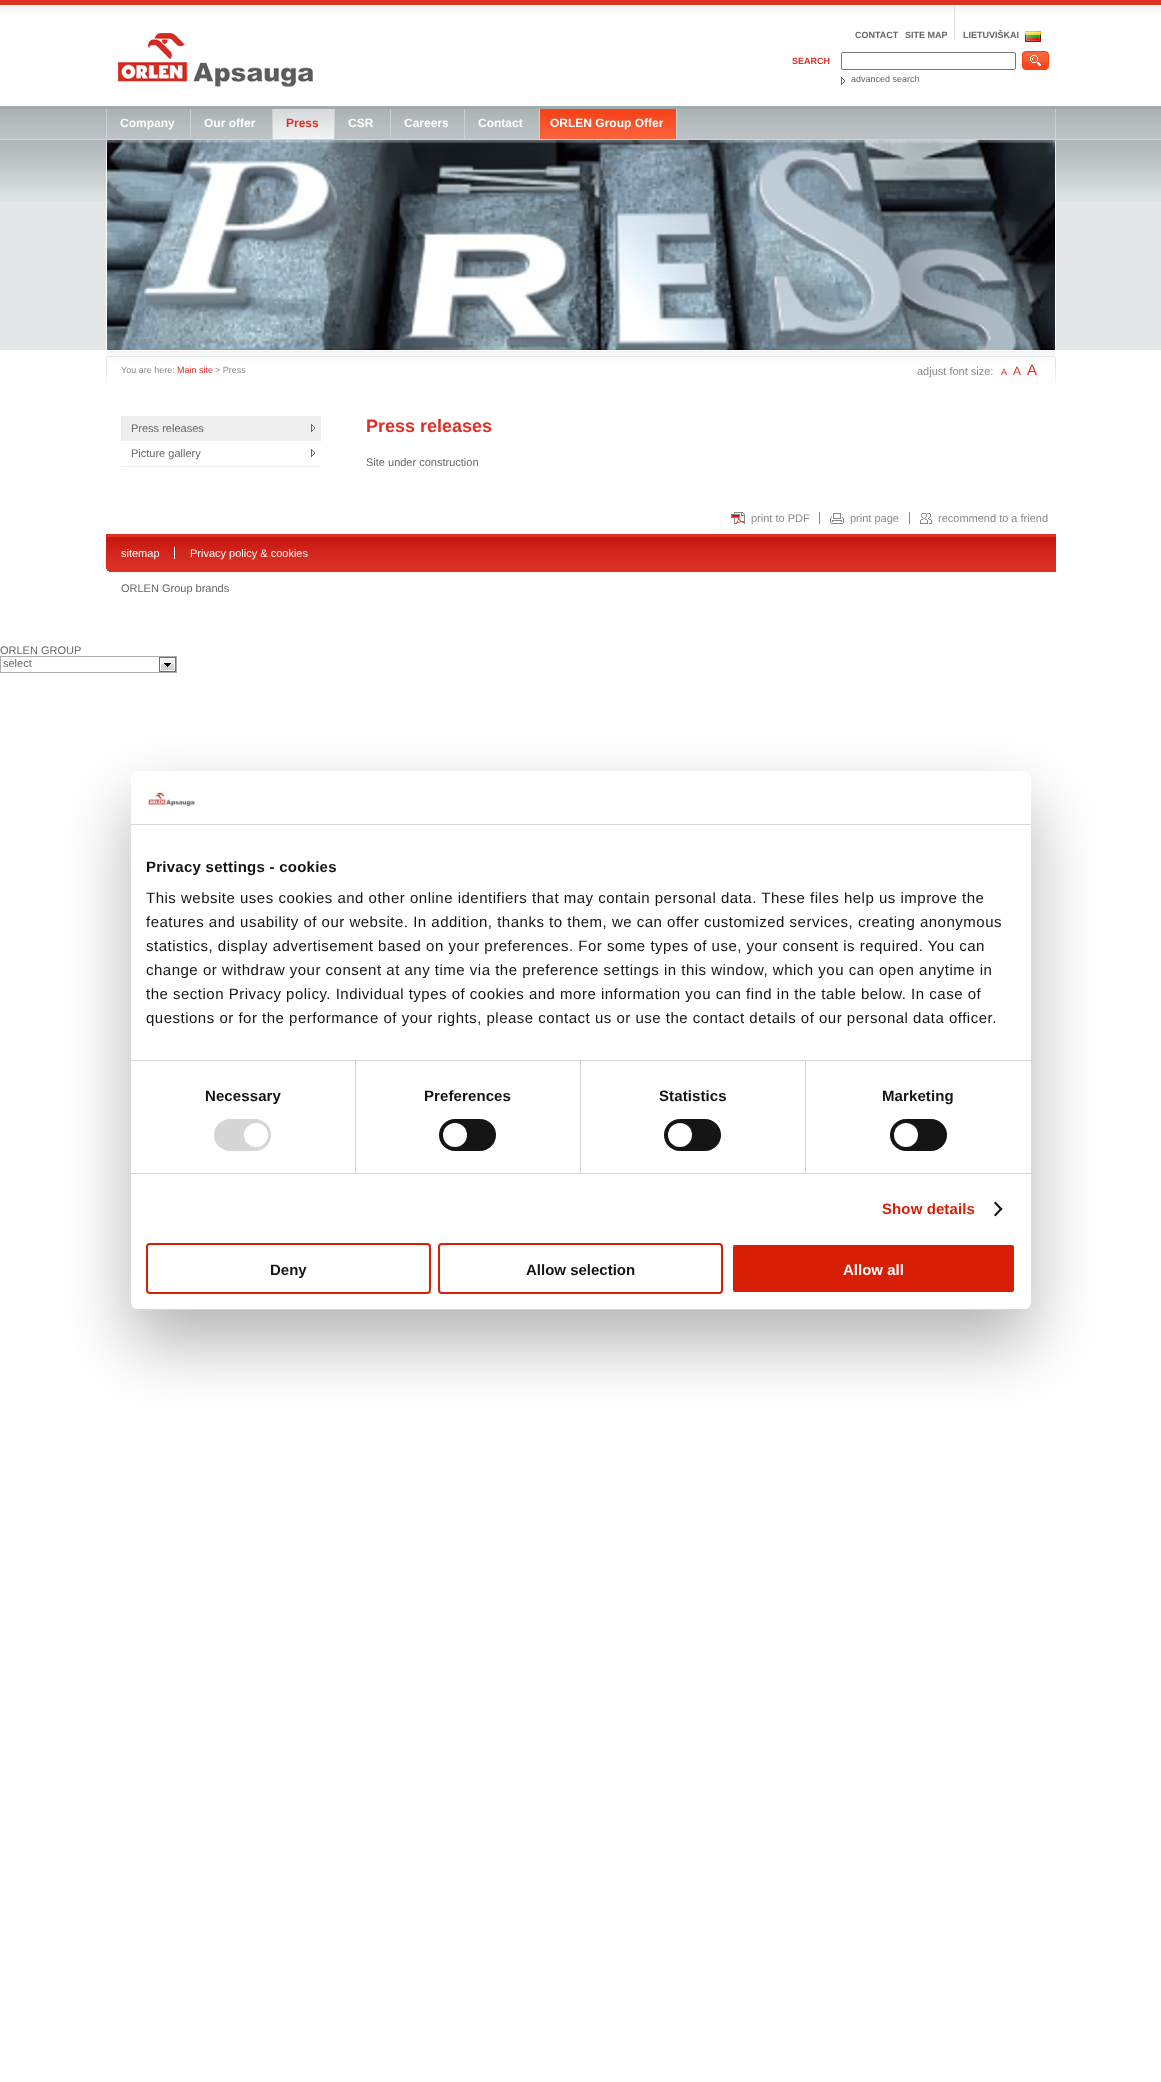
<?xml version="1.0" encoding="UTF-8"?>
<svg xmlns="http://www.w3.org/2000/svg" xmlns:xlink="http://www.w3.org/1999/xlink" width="1161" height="2082">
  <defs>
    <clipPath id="clip1"><rect x="131" y="771" width="900" height="539" rx="8" /></clipPath>
  </defs>
  <rect width="100%" height="100%" fill="#ffffff" />
  <image x="0" y="0" width="1161" height="13" xlink:href="image1.png" />
  <image x="118" y="33" width="195" height="54" xlink:href="image2.png" />
  <image x="954" y="6" width="1" height="34" xlink:href="image3.png" />
  <image x="1025" y="31" width="16" height="11" xlink:href="image4.png" />
  <rect x="841.5" y="52.5" width="174" height="17" rx="1.5" fill="none" stroke="#767676" />
  <image x="1022" y="51" width="27" height="19" xlink:href="image5.png" />
  <image x="841" y="77" width="4" height="8" xlink:href="image6.png" />
  <image x="0" y="109" width="1161" height="31" xlink:href="image7.png" />
  <rect y="106" width="1161" height="3" fill="#a0abae" />
  <image x="106" y="109" width="950" height="30" xlink:href="image8.png" />
  <rect x="190" y="109" width="1" height="30" fill="#ccd1d2" />
  <rect x="272" y="109" width="1" height="30" fill="#ccd1d2" />
  <image x="273" y="109" width="61" height="30" xlink:href="image9.png" />
  <rect x="334" y="109" width="1" height="30" fill="#ccd1d2" />
  <rect x="390" y="109" width="1" height="30" fill="#ccd1d2" />
  <rect x="464" y="109" width="1" height="30" fill="#ccd1d2" />
  <rect x="539" y="109" width="1" height="30" fill="#ccd1d2" />
  <image x="540" y="109" width="136" height="30" xlink:href="image10.png" />
  <rect x="676" y="109" width="1" height="30" fill="#ccd1d2" />
  <rect y="201" width="1161" height="149" fill="#e3e7e7" />
  <image x="0" y="140" width="1161" height="61" xlink:href="image11.png" />
  <rect x="106" y="178" width="950" height="172" fill="#ffffff" />
  <image x="106" y="140" width="950" height="38" xlink:href="image12.png" />
  <image x="107" y="140" width="948" height="210" xlink:href="image13.png" />
  <image x="106" y="351" width="950" height="34" xlink:href="image14.png" />
  <rect x="121" y="416" width="200" height="25" fill="#eeeeee" />
  <image x="311" y="424" width="4" height="8" xlink:href="image15.png" />
  <image x="311" y="449" width="4" height="8" xlink:href="image6.png" />
  <rect x="121" y="466" width="200" height="1" fill="#eeeeee" />
  <image x="731" y="512" width="14" height="12" xlink:href="image16.png" />
  <image x="830" y="513" width="14" height="11" xlink:href="image17.png" />
  <rect x="819" y="512" width="1" height="12" fill="#888888" />
  <image x="920" y="513" width="12" height="11" xlink:href="image18.png" />
  <rect x="909" y="512" width="1" height="12" fill="#888888" />
  <image x="106" y="534" width="950" height="38" xlink:href="image19.png" />
  <rect x="174" y="547" width="1" height="12" fill="#ffffff" />
  <image x="159" y="657" width="17" height="15" xlink:href="image20.png" />
  <rect x="0.5" y="656.5" width="176" height="16" fill="none" stroke="#abadb3" />
  <rect x="131" y="803" width="900" height="539" rx="8" fill="#000000" fill-opacity="0.3" filter="blur(34px)" />
  <rect x="131" y="771" width="900" height="539" rx="8" fill="#ffffff" />
  <rect x="131" y="824" width="900" height="1" fill="#d6d6d6" />
  <image x="148" y="792" width="47" height="14" xlink:href="image21.png" />
  <rect x="131" y="1060" width="900" height="1" fill="#d6d6d6" />
  <rect x="131" y="1173" width="900" height="1" fill="#d6d6d6" />
  <rect x="355" y="1061" width="1" height="112" fill="#d6d6d6" />
  <rect x="214" y="1119" width="57" height="32" rx="16" fill="#d6d6d6" />
  <circle cx="256" cy="1135" r="12" fill="#ffffff" />
  <rect x="580" y="1061" width="1" height="112" fill="#d6d6d6" />
  <rect x="439" y="1119" width="57" height="32" rx="16" fill="#141414" />
  <circle cx="455" cy="1135" r="12" fill="#ffffff" />
  <rect x="805" y="1061" width="1" height="112" fill="#d6d6d6" />
  <rect x="664" y="1119" width="57" height="32" rx="16" fill="#141414" />
  <circle cx="680" cy="1135" r="12" fill="#ffffff" />
  <rect x="890" y="1119" width="57" height="32" rx="16" fill="#141414" />
  <circle cx="906" cy="1135" r="12" fill="#ffffff" />
  <path d="M 995.5 1201.5 l 7 7.5 l -1.5 1.5 l -7 -7.5 z" fill="#141414" />
  <path d="M 1001 1207.5 l 1.5 1.5 l -7 7.5 l -1.5 -1.5 z" fill="#141414" />
  <g clip-path="url(#clip1)">
    <rect x="131" y="1309" width="900" height="1" fill="#d6d6d6" />
  </g>
  <rect x="147" y="1244" width="283" height="49" rx="3" fill="none" stroke="#d81e04" stroke-width="2" />
  <rect x="439" y="1244" width="283" height="49" rx="3" fill="none" stroke="#d81e04" stroke-width="2" />
  <rect x="732" y="1244" width="283" height="49" rx="3" fill="#d81e04" stroke="#ffffff" stroke-width="2" />
  <text x="855" y="38" style="font-family: Liberation Sans; font-size: 9px; font-weight: bold; fill: #666666">CONTACT</text>
  <text x="905" y="38" style="font-family: Liberation Sans; font-size: 9px; font-weight: bold; fill: #666666">SITE MAP</text>
  <text x="963" y="38" style="font-family: Liberation Sans; font-size: 9px; font-weight: bold; fill: #666666">LIETUVIŠKAI</text>
  <text x="792" y="64" style="font-family: Liberation Sans; font-size: 9px; font-weight: bold; fill: #dd3126">SEARCH</text>
  <text x="851" y="82" style="font-family: Liberation Sans; font-size: 9px; fill: #666666">advanced search</text>
  <text x="120" y="127" style="font-family: Liberation Sans; font-size: 12px; font-weight: bold; fill: #ffffff">Company</text>
  <text x="204" y="127" style="font-family: Liberation Sans; font-size: 12px; font-weight: bold; fill: #ffffff">Our offer</text>
  <text x="286" y="127" style="font-family: Liberation Sans; font-size: 12px; font-weight: bold; fill: #dd3126">Press</text>
  <text x="348" y="127" style="font-family: Liberation Sans; font-size: 12px; font-weight: bold; fill: #ffffff">CSR</text>
  <text x="404" y="127" style="font-family: Liberation Sans; font-size: 12px; font-weight: bold; fill: #ffffff">Careers</text>
  <text x="478" y="127" style="font-family: Liberation Sans; font-size: 12px; font-weight: bold; fill: #ffffff">Contact</text>
  <text x="550" y="127" style="font-family: Liberation Sans; font-size: 12px; font-weight: bold; fill: #ffffff">ORLEN Group Offer</text>
  <text x="121" y="373" style="font-family: Liberation Sans; font-size: 9px; fill: #888888">You are here:</text>
  <text x="177" y="373" style="font-family: Liberation Sans; font-size: 9px; fill: #dd3126">Main site</text>
  <text x="215" y="373" style="font-family: Liberation Sans; font-size: 9px; fill: #888888">&gt; Press</text>
  <text x="917" y="375" style="font-family: Liberation Sans; font-size: 11px; fill: #888888">adjust font size:</text>
  <text x="1001" y="375" style="font-family: Liberation Sans; font-size: 9px; fill: #dd3126">A</text>
  <text x="1013" y="375" style="font-family: Liberation Sans; font-size: 12px; fill: #dd3126">A</text>
  <text x="1027" y="375" style="font-family: Liberation Sans; font-size: 15px; fill: #dd3126">A</text>
  <text x="131" y="432" style="font-family: Liberation Sans; font-size: 11px; fill: #666666">Press releases</text>
  <text x="131" y="457" style="font-family: Liberation Sans; font-size: 11px; fill: #666666">Picture gallery</text>
  <text x="366" y="432" style="font-family: Liberation Sans; font-size: 18px; font-weight: bold; fill: #dd3126">Press releases</text>
  <text x="366" y="466" style="font-family: Liberation Sans; font-size: 11px; fill: #666666">Site under construction</text>
  <text x="751" y="522" style="font-family: Liberation Sans; font-size: 11px; fill: #888888">print to PDF</text>
  <text x="850" y="522" style="font-family: Liberation Sans; font-size: 11px; fill: #888888">print page</text>
  <text x="938" y="522" style="font-family: Liberation Sans; font-size: 11px; fill: #888888">recommend to a friend</text>
  <text x="121" y="557" style="font-family: Liberation Sans; font-size: 11px; fill: #ffffff">sitemap</text>
  <text x="190" y="557" style="font-family: Liberation Sans; font-size: 11px; fill: #ffffff">Privacy policy &amp; cookies</text>
  <text x="121" y="592" style="font-family: Liberation Sans; font-size: 11px; fill: #666666">ORLEN Group brands</text>
  <text x="0" y="654" style="font-family: Liberation Sans; font-size: 11px; fill: #666666">ORLEN GROUP</text>
  <text x="3" y="667" style="font-family: Liberation Sans; font-size: 11px; fill: #666666">select</text>
  <text x="146" y="872" style="font-family: Liberation Sans; font-size: 15px; font-weight: bold; letter-spacing: 0.25px; fill: #141414">Privacy settings - cookies</text>
  <text x="146" y="903" style="font-family: Liberation Sans; font-size: 15px; letter-spacing: 0.5px; fill: #141414">This website uses cookies and other online identifiers that may contain personal data. These files help us improve the</text>
  <text x="146" y="927" style="font-family: Liberation Sans; font-size: 15px; letter-spacing: 0.5px; fill: #141414">features and usability of our website. In addition, thanks to them, we can offer customized services, creating anonymous</text>
  <text x="146" y="951" style="font-family: Liberation Sans; font-size: 15px; letter-spacing: 0.5px; fill: #141414">statistics, display advertisement based on your preferences. For some types of use, your consent is required. You can</text>
  <text x="146" y="975" style="font-family: Liberation Sans; font-size: 15px; letter-spacing: 0.5px; fill: #141414">change or withdraw your consent at any time via the preference settings in this window, which you can open anytime in</text>
  <text x="146" y="999" style="font-family: Liberation Sans; font-size: 15px; letter-spacing: 0.5px; fill: #141414">the section Privacy policy. Individual types of cookies and more information you can find in the table below. In case of</text>
  <text x="146" y="1023" style="font-family: Liberation Sans; font-size: 15px; letter-spacing: 0.5px; fill: #141414">questions or for the performance of your rights, please contact us or use the contact details of our personal data officer.</text>
  <text x="205" y="1101" style="font-family: Liberation Sans; font-size: 15px; font-weight: bold; letter-spacing: 0.1px; fill: #141414">Necessary</text>
  <text x="424" y="1101" style="font-family: Liberation Sans; font-size: 15px; font-weight: bold; letter-spacing: 0.1px; fill: #141414">Preferences</text>
  <text x="659" y="1101" style="font-family: Liberation Sans; font-size: 15px; font-weight: bold; letter-spacing: 0.1px; fill: #141414">Statistics</text>
  <text x="882" y="1101" style="font-family: Liberation Sans; font-size: 15px; font-weight: bold; letter-spacing: 0.1px; fill: #141414">Marketing</text>
  <text x="882" y="1214" style="font-family: Liberation Sans; font-size: 15px; font-weight: bold; letter-spacing: 0.1px; fill: #d81e04">Show details</text>
  <text x="270" y="1275" style="font-family: Liberation Sans; font-size: 15px; font-weight: bold; fill: #141414">Deny</text>
  <text x="526" y="1275" style="font-family: Liberation Sans; font-size: 15px; font-weight: bold; fill: #141414">Allow selection</text>
  <text x="843" y="1275" style="font-family: Liberation Sans; font-size: 15px; font-weight: bold; fill: #ffffff">Allow all</text>
</svg>
